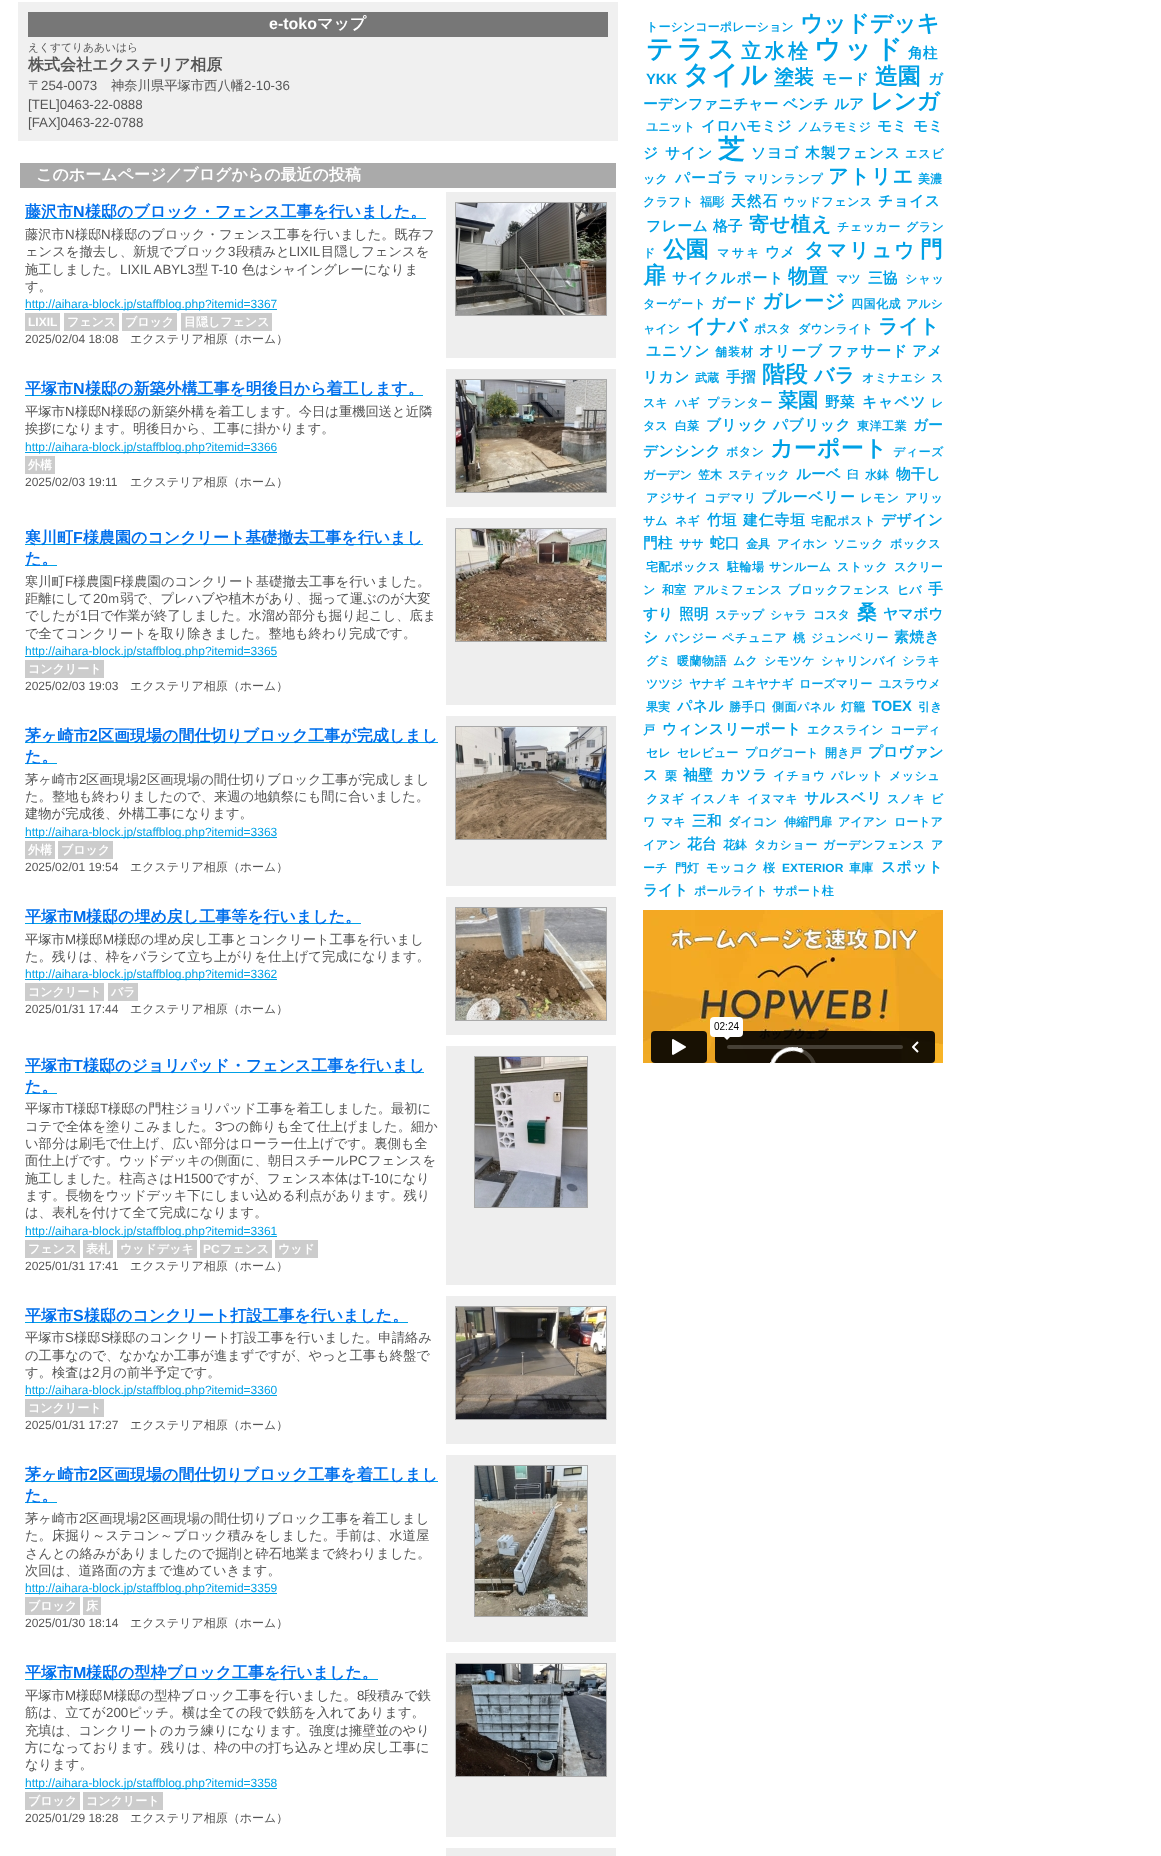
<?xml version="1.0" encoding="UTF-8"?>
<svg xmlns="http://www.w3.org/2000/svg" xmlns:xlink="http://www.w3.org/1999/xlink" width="1161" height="1856">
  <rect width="100%" height="100%" fill="#ffffff" />
  <rect x="18" y="2" width="600" height="139" fill="#f0f0f0" />
  <rect x="28" y="12" width="580" height="25" fill="#777777" />
  <rect x="20" y="163" width="596" height="25" fill="#aaaaaa" />
  <rect x="25" y="218" width="401" height="1" fill="#00a1e6" />
  <rect x="25" y="309" width="252" height="1" fill="#00a1e6" />
  <rect x="25" y="313" width="35" height="18" fill="#cccccc" />
  <rect x="64" y="313" width="55" height="18" fill="#cccccc" />
  <rect x="122" y="313" width="55" height="18" fill="#cccccc" />
  <rect x="181" y="313" width="91" height="18" fill="#cccccc" />
  <rect x="446" y="192" width="170" height="166" fill="#eeeeee" />
  <rect x="455.5" y="202.5" width="151" height="113" fill="none" stroke="#aaaaaa" />
  <image x="456" y="203" width="150" height="112" xlink:href="image1.png" />
  <rect x="25" y="395" width="398" height="1" fill="#00a1e6" />
  <rect x="25" y="452" width="252" height="1" fill="#00a1e6" />
  <rect x="25" y="456" width="30" height="18" fill="#cccccc" />
  <rect x="446" y="369" width="170" height="138" fill="#eeeeee" />
  <rect x="455.5" y="379.5" width="151" height="113" fill="none" stroke="#aaaaaa" />
  <image x="456" y="380" width="150" height="112" xlink:href="image2.png" />
  <rect x="25" y="544" width="398" height="1" fill="#00a1e6" />
  <rect x="25" y="565" width="32" height="1" fill="#00a1e6" />
  <rect x="25" y="656" width="252" height="1" fill="#00a1e6" />
  <rect x="25" y="660" width="79" height="18" fill="#cccccc" />
  <rect x="446" y="518" width="170" height="187" fill="#eeeeee" />
  <rect x="455.5" y="528.5" width="151" height="113" fill="none" stroke="#aaaaaa" />
  <image x="456" y="529" width="150" height="112" xlink:href="image3.png" />
  <rect x="25" y="742" width="413" height="1" fill="#00a1e6" />
  <rect x="25" y="763" width="32" height="1" fill="#00a1e6" />
  <rect x="25" y="837" width="252" height="1" fill="#00a1e6" />
  <rect x="25" y="841" width="30" height="18" fill="#cccccc" />
  <rect x="58" y="841" width="55" height="18" fill="#cccccc" />
  <rect x="446" y="716" width="170" height="170" fill="#eeeeee" />
  <rect x="455.5" y="726.5" width="151" height="113" fill="none" stroke="#aaaaaa" />
  <image x="456" y="727" width="150" height="112" xlink:href="image4.png" />
  <rect x="25" y="923" width="336" height="1" fill="#00a1e6" />
  <rect x="25" y="979" width="252" height="1" fill="#00a1e6" />
  <rect x="25" y="983" width="79" height="18" fill="#cccccc" />
  <rect x="108" y="983" width="30" height="18" fill="#cccccc" />
  <rect x="446" y="897" width="170" height="138" fill="#eeeeee" />
  <rect x="455.5" y="907.5" width="151" height="113" fill="none" stroke="#aaaaaa" />
  <image x="456" y="908" width="150" height="112" xlink:href="image5.png" />
  <rect x="25" y="1072" width="399" height="1" fill="#00a1e6" />
  <rect x="25" y="1093" width="32" height="1" fill="#00a1e6" />
  <rect x="25" y="1236" width="252" height="1" fill="#00a1e6" />
  <rect x="25" y="1240" width="55" height="18" fill="#cccccc" />
  <rect x="83" y="1240" width="30" height="18" fill="#cccccc" />
  <rect x="117" y="1240" width="80" height="18" fill="#cccccc" />
  <rect x="200" y="1240" width="72" height="18" fill="#cccccc" />
  <rect x="275" y="1240" width="43" height="18" fill="#cccccc" />
  <rect x="446" y="1046" width="170" height="239" fill="#eeeeee" />
  <rect x="474.5" y="1056.5" width="113" height="151" fill="none" stroke="#aaaaaa" />
  <image x="475" y="1057" width="112" height="150" xlink:href="image6.png" />
  <rect x="25" y="1322" width="383" height="1" fill="#00a1e6" />
  <rect x="25" y="1395" width="252" height="1" fill="#00a1e6" />
  <rect x="25" y="1399" width="79" height="18" fill="#cccccc" />
  <rect x="446" y="1296" width="170" height="148" fill="#eeeeee" />
  <rect x="455.5" y="1306.5" width="151" height="113" fill="none" stroke="#aaaaaa" />
  <image x="456" y="1307" width="150" height="112" xlink:href="image7.png" />
  <rect x="25" y="1481" width="413" height="1" fill="#00a1e6" />
  <rect x="25" y="1502" width="32" height="1" fill="#00a1e6" />
  <rect x="25" y="1593" width="252" height="1" fill="#00a1e6" />
  <rect x="25" y="1597" width="55" height="18" fill="#cccccc" />
  <rect x="83" y="1597" width="18" height="18" fill="#cccccc" />
  <rect x="446" y="1455" width="170" height="187" fill="#eeeeee" />
  <rect x="474.5" y="1465.5" width="113" height="151" fill="none" stroke="#aaaaaa" />
  <image x="475" y="1466" width="112" height="150" xlink:href="image8.png" />
  <rect x="25" y="1679" width="353" height="1" fill="#00a1e6" />
  <rect x="25" y="1788" width="252" height="1" fill="#00a1e6" />
  <rect x="25" y="1792" width="55" height="18" fill="#cccccc" />
  <rect x="83" y="1792" width="80" height="18" fill="#cccccc" />
  <rect x="446" y="1653" width="170" height="184" fill="#eeeeee" />
  <rect x="455.5" y="1663.5" width="151" height="113" fill="none" stroke="#aaaaaa" />
  <image x="456" y="1664" width="150" height="112" xlink:href="image9.png" />
  <rect x="446" y="1848" width="170" height="8" fill="#eeeeee" />
  <image x="643" y="910" width="300" height="153" xlink:href="image10.png" />
  <text x="269" y="29" style="font-family: Liberation Sans; font-size: 16px; font-weight: bold; fill: #ffffff">e-toko</text>
  <text x="317" y="29" style="font-family: WenQuanYi Zen Hei; font-size: 16px; font-weight: bold; fill: #ffffff">マップ</text>
  <text x="28" y="51" style="font-family: WenQuanYi Zen Hei; font-size: 10.75px; font-weight: 500; fill: #555555">えくすてりああいはら</text>
  <text x="28" y="70" style="font-family: WenQuanYi Zen Hei; font-size: 16px; font-weight: bold; fill: #555555">株式会社エクステリア相原</text>
  <text x="28" y="90" style="font-family: WenQuanYi Zen Hei; font-size: 13.3px; font-weight: 500; fill: #555555">〒</text>
  <text x="41" y="90" style="font-family: Liberation Sans; font-size: 13.3px; fill: #555555">254-0073</text>
  <text x="111" y="90" style="font-family: WenQuanYi Zen Hei; font-size: 13.3px; font-weight: 500; fill: #555555">神奈川県平塚市西八幡</text>
  <text x="244" y="90" style="font-family: Liberation Sans; font-size: 13.3px; fill: #555555">2-10-36</text>
  <text x="28" y="109" style="font-family: Liberation Sans; font-size: 13.3px; fill: #555555">[TEL]0463-22-0888</text>
  <text x="28" y="127" style="font-family: Liberation Sans; font-size: 13.3px; fill: #555555">[FAX]0463-22-0788</text>
  <text x="36" y="180" style="font-family: WenQuanYi Zen Hei; font-size: 16px; font-weight: bold; fill: #ffffff">このホームページ／ブログからの最近の投稿</text>
  <text x="25" y="217" style="font-family: WenQuanYi Zen Hei; font-size: 16px; font-weight: bold; fill: #006fec">藤沢市</text>
  <text x="73" y="217" style="font-family: Liberation Sans; font-size: 16px; font-weight: bold; fill: #006fec">N</text>
  <text x="85" y="217" style="font-family: WenQuanYi Zen Hei; font-size: 16px; font-weight: bold; fill: #006fec">様邸のブロック・フェンス工事を行いました。</text>
  <text x="25" y="239" style="font-family: WenQuanYi Zen Hei; font-size: 13.3px; font-weight: 500; fill: #555555">藤沢市</text>
  <text x="65" y="239" style="font-family: Liberation Sans; font-size: 13.3px; fill: #555555">N</text>
  <text x="75" y="239" style="font-family: WenQuanYi Zen Hei; font-size: 13.3px; font-weight: 500; fill: #555555">様邸</text>
  <text x="101" y="239" style="font-family: Liberation Sans; font-size: 13.3px; fill: #555555">N</text>
  <text x="111" y="239" style="font-family: WenQuanYi Zen Hei; font-size: 13.3px; font-weight: 500; fill: #555555">様邸のブロック・フェンス工事を行いました。既存フ</text>
  <text x="25" y="256" style="font-family: WenQuanYi Zen Hei; font-size: 13.3px; font-weight: 500; fill: #555555">ェンスを撤去し、新規でブロック</text>
  <text x="228" y="256" style="font-family: Liberation Sans; font-size: 13.3px; fill: #555555">3</text>
  <text x="236" y="256" style="font-family: WenQuanYi Zen Hei; font-size: 13.3px; font-weight: 500; fill: #555555">段積みと</text>
  <text x="289" y="256" style="font-family: Liberation Sans; font-size: 13.3px; fill: #555555">LIXIL</text>
  <text x="321" y="256" style="font-family: WenQuanYi Zen Hei; font-size: 13.3px; font-weight: 500; fill: #555555">目隠しフェンスを</text>
  <text x="25" y="274" style="font-family: WenQuanYi Zen Hei; font-size: 13.3px; font-weight: 500; fill: #555555">施工しました。</text>
  <text x="120" y="274" style="font-family: Liberation Sans; font-size: 13.3px; fill: #555555">LIXIL ABYL3</text>
  <text x="195" y="274" style="font-family: WenQuanYi Zen Hei; font-size: 13.3px; font-weight: 500; fill: #555555">型</text>
  <text x="211" y="274" style="font-family: Liberation Sans; font-size: 13.3px; fill: #555555">T-10</text>
  <text x="242" y="274" style="font-family: WenQuanYi Zen Hei; font-size: 13.3px; font-weight: 500; fill: #555555">色はシャイングレーになりま</text>
  <text x="25" y="291" style="font-family: WenQuanYi Zen Hei; font-size: 13.3px; font-weight: 500; fill: #555555">す。</text>
  <text x="25" y="308" style="font-family: Liberation Sans; font-size: 12px; fill: #00a1e6">http://aihara-block.jp/staffblog.php?itemid=3367</text>
  <text x="28" y="326" style="font-family: Liberation Sans; font-size: 12px; font-weight: bold; fill: #ffffff">LIXIL</text>
  <text x="67" y="326" style="font-family: WenQuanYi Zen Hei; font-size: 12px; font-weight: bold; fill: #ffffff">フェンス</text>
  <text x="125" y="326" style="font-family: WenQuanYi Zen Hei; font-size: 12px; font-weight: bold; fill: #ffffff">ブロック</text>
  <text x="184" y="326" style="font-family: WenQuanYi Zen Hei; font-size: 12px; font-weight: bold; fill: #ffffff">目隠しフェンス</text>
  <text x="25" y="343" style="font-family: Liberation Sans; font-size: 12px; fill: #555555">2025/02/04 18:08</text>
  <text x="130" y="343" style="font-family: WenQuanYi Zen Hei; font-size: 12px; font-weight: 500; fill: #555555">エクステリア相原（ホーム）</text>
  <text x="25" y="394" style="font-family: WenQuanYi Zen Hei; font-size: 16px; font-weight: bold; fill: #006fec">平塚市</text>
  <text x="73" y="394" style="font-family: Liberation Sans; font-size: 16px; font-weight: bold; fill: #006fec">N</text>
  <text x="85" y="394" style="font-family: WenQuanYi Zen Hei; font-size: 16px; font-weight: bold; fill: #006fec">様邸の新築外構工事を明後日から着工します。</text>
  <text x="25" y="416" style="font-family: WenQuanYi Zen Hei; font-size: 13.3px; font-weight: 500; fill: #555555">平塚市</text>
  <text x="65" y="416" style="font-family: Liberation Sans; font-size: 13.3px; fill: #555555">N</text>
  <text x="75" y="416" style="font-family: WenQuanYi Zen Hei; font-size: 13.3px; font-weight: 500; fill: #555555">様邸</text>
  <text x="101" y="416" style="font-family: Liberation Sans; font-size: 13.3px; fill: #555555">N</text>
  <text x="111" y="416" style="font-family: WenQuanYi Zen Hei; font-size: 13.3px; font-weight: 500; fill: #555555">様邸の新築外構を着工します。今日は重機回送と近隣</text>
  <text x="25" y="433" style="font-family: WenQuanYi Zen Hei; font-size: 13.3px; font-weight: 500; fill: #555555">挨拶になります。明後日から、工事に掛かります。</text>
  <text x="25" y="451" style="font-family: Liberation Sans; font-size: 12px; fill: #00a1e6">http://aihara-block.jp/staffblog.php?itemid=3366</text>
  <text x="28" y="469" style="font-family: WenQuanYi Zen Hei; font-size: 12px; font-weight: bold; fill: #ffffff">外構</text>
  <text x="25" y="486" style="font-family: Liberation Sans; font-size: 12px; fill: #555555">2025/02/03 19:11</text>
  <text x="130" y="486" style="font-family: WenQuanYi Zen Hei; font-size: 12px; font-weight: 500; fill: #555555">エクステリア相原（ホーム）</text>
  <text x="25" y="543" style="font-family: WenQuanYi Zen Hei; font-size: 16px; font-weight: bold; fill: #006fec">寒川町</text>
  <text x="73" y="543" style="font-family: Liberation Sans; font-size: 16px; font-weight: bold; fill: #006fec">F</text>
  <text x="83" y="543" style="font-family: WenQuanYi Zen Hei; font-size: 16px; font-weight: bold; fill: #006fec">様農園のコンクリート基礎撤去工事を行いまし</text>
  <text x="25" y="564" style="font-family: WenQuanYi Zen Hei; font-size: 16px; font-weight: bold; fill: #006fec">た。</text>
  <text x="25" y="586" style="font-family: WenQuanYi Zen Hei; font-size: 13.3px; font-weight: 500; fill: #555555">寒川町</text>
  <text x="65" y="586" style="font-family: Liberation Sans; font-size: 13.3px; fill: #555555">F</text>
  <text x="73" y="586" style="font-family: WenQuanYi Zen Hei; font-size: 13.3px; font-weight: 500; fill: #555555">様農園</text>
  <text x="113" y="586" style="font-family: Liberation Sans; font-size: 13.3px; fill: #555555">F</text>
  <text x="121" y="586" style="font-family: WenQuanYi Zen Hei; font-size: 13.3px; font-weight: 500; fill: #555555">様農園のコンクリート基礎撤去工事を行いました。</text>
  <text x="25" y="603" style="font-family: WenQuanYi Zen Hei; font-size: 13.3px; font-weight: 500; fill: #555555">距離にして</text>
  <text x="93" y="603" style="font-family: Liberation Sans; font-size: 13.3px; fill: #555555">20</text>
  <text x="107" y="603" style="font-family: WenQuanYi Zen Hei; font-size: 13.3px; font-weight: 500; fill: #555555">ｍ弱で、プレハブや植木があり、掘って運ぶのが大変</text>
  <text x="25" y="620" style="font-family: WenQuanYi Zen Hei; font-size: 13.3px; font-weight: 500; fill: #555555">でしたが</text>
  <text x="80" y="620" style="font-family: Liberation Sans; font-size: 13.3px; fill: #555555">1</text>
  <text x="87" y="620" style="font-family: WenQuanYi Zen Hei; font-size: 13.3px; font-weight: 500; fill: #555555">日で作業が終了しました。水溜め部分も掘り起こし、底ま</text>
  <text x="25" y="638" style="font-family: WenQuanYi Zen Hei; font-size: 13.3px; font-weight: 500; fill: #555555">で全てコンクリートを取り除きました。整地も終わり完成です。</text>
  <text x="25" y="655" style="font-family: Liberation Sans; font-size: 12px; fill: #00a1e6">http://aihara-block.jp/staffblog.php?itemid=3365</text>
  <text x="28" y="673" style="font-family: WenQuanYi Zen Hei; font-size: 12px; font-weight: bold; fill: #ffffff">コンクリート</text>
  <text x="25" y="690" style="font-family: Liberation Sans; font-size: 12px; fill: #555555">2025/02/03 19:03</text>
  <text x="130" y="690" style="font-family: WenQuanYi Zen Hei; font-size: 12px; font-weight: 500; fill: #555555">エクステリア相原（ホーム）</text>
  <text x="25" y="741" style="font-family: WenQuanYi Zen Hei; font-size: 16px; font-weight: bold; fill: #006fec">茅ヶ崎市</text>
  <text x="89" y="741" style="font-family: Liberation Sans; font-size: 16px; font-weight: bold; fill: #006fec">2</text>
  <text x="98" y="741" style="font-family: WenQuanYi Zen Hei; font-size: 16px; font-weight: bold; fill: #006fec">区画現場の間仕切りブロック工事が完成しまし</text>
  <text x="25" y="762" style="font-family: WenQuanYi Zen Hei; font-size: 16px; font-weight: bold; fill: #006fec">た。</text>
  <text x="25" y="784" style="font-family: WenQuanYi Zen Hei; font-size: 13.3px; font-weight: 500; fill: #555555">茅ヶ崎市</text>
  <text x="79" y="784" style="font-family: Liberation Sans; font-size: 13.3px; fill: #555555">2</text>
  <text x="86" y="784" style="font-family: WenQuanYi Zen Hei; font-size: 13.3px; font-weight: 500; fill: #555555">区画現場</text>
  <text x="139" y="784" style="font-family: Liberation Sans; font-size: 13.3px; fill: #555555">2</text>
  <text x="147" y="784" style="font-family: WenQuanYi Zen Hei; font-size: 13.3px; font-weight: 500; fill: #555555">区画現場の間仕切りブロック工事が完成しまし</text>
  <text x="25" y="801" style="font-family: WenQuanYi Zen Hei; font-size: 13.3px; font-weight: 500; fill: #555555">た。整地も終わりましたので、来週の地鎮祭にも間に合いました。</text>
  <text x="25" y="818" style="font-family: WenQuanYi Zen Hei; font-size: 13.3px; font-weight: 500; fill: #555555">建物が完成後、外構工事になります。</text>
  <text x="25" y="836" style="font-family: Liberation Sans; font-size: 12px; fill: #00a1e6">http://aihara-block.jp/staffblog.php?itemid=3363</text>
  <text x="28" y="854" style="font-family: WenQuanYi Zen Hei; font-size: 12px; font-weight: bold; fill: #ffffff">外構</text>
  <text x="61" y="854" style="font-family: WenQuanYi Zen Hei; font-size: 12px; font-weight: bold; fill: #ffffff">ブロック</text>
  <text x="25" y="871" style="font-family: Liberation Sans; font-size: 12px; fill: #555555">2025/02/01 19:54</text>
  <text x="130" y="871" style="font-family: WenQuanYi Zen Hei; font-size: 12px; font-weight: 500; fill: #555555">エクステリア相原（ホーム）</text>
  <text x="25" y="922" style="font-family: WenQuanYi Zen Hei; font-size: 16px; font-weight: bold; fill: #006fec">平塚市</text>
  <text x="73" y="922" style="font-family: Liberation Sans; font-size: 16px; font-weight: bold; fill: #006fec">M</text>
  <text x="86" y="922" style="font-family: WenQuanYi Zen Hei; font-size: 16px; font-weight: bold; fill: #006fec">様邸の埋め戻し工事等を行いました。</text>
  <text x="25" y="944" style="font-family: WenQuanYi Zen Hei; font-size: 13.3px; font-weight: 500; fill: #555555">平塚市</text>
  <text x="65" y="944" style="font-family: Liberation Sans; font-size: 13.3px; fill: #555555">M</text>
  <text x="76" y="944" style="font-family: WenQuanYi Zen Hei; font-size: 13.3px; font-weight: 500; fill: #555555">様邸</text>
  <text x="103" y="944" style="font-family: Liberation Sans; font-size: 13.3px; fill: #555555">M</text>
  <text x="114" y="944" style="font-family: WenQuanYi Zen Hei; font-size: 13.3px; font-weight: 500; fill: #555555">様邸の埋め戻し工事とコンクリート工事を行いまし</text>
  <text x="25" y="961" style="font-family: WenQuanYi Zen Hei; font-size: 13.3px; font-weight: 500; fill: #555555">た。残りは、枠をバラシて立ち上がりを仕上げて完成になります。</text>
  <text x="25" y="978" style="font-family: Liberation Sans; font-size: 12px; fill: #00a1e6">http://aihara-block.jp/staffblog.php?itemid=3362</text>
  <text x="28" y="996" style="font-family: WenQuanYi Zen Hei; font-size: 12px; font-weight: bold; fill: #ffffff">コンクリート</text>
  <text x="111" y="996" style="font-family: WenQuanYi Zen Hei; font-size: 12px; font-weight: bold; fill: #ffffff">バラ</text>
  <text x="25" y="1013" style="font-family: Liberation Sans; font-size: 12px; fill: #555555">2025/01/31 17:44</text>
  <text x="130" y="1013" style="font-family: WenQuanYi Zen Hei; font-size: 12px; font-weight: 500; fill: #555555">エクステリア相原（ホーム）</text>
  <text x="25" y="1071" style="font-family: WenQuanYi Zen Hei; font-size: 16px; font-weight: bold; fill: #006fec">平塚市</text>
  <text x="73" y="1071" style="font-family: Liberation Sans; font-size: 16px; font-weight: bold; fill: #006fec">T</text>
  <text x="83" y="1071" style="font-family: WenQuanYi Zen Hei; font-size: 16px; font-weight: bold; fill: #006fec">様邸のジョリパッド・フェンス工事を行いまし</text>
  <text x="25" y="1092" style="font-family: WenQuanYi Zen Hei; font-size: 16px; font-weight: bold; fill: #006fec">た。</text>
  <text x="25" y="1113" style="font-family: WenQuanYi Zen Hei; font-size: 13.3px; font-weight: 500; fill: #555555">平塚市</text>
  <text x="65" y="1113" style="font-family: Liberation Sans; font-size: 13.3px; fill: #555555">T</text>
  <text x="73" y="1113" style="font-family: WenQuanYi Zen Hei; font-size: 13.3px; font-weight: 500; fill: #555555">様邸</text>
  <text x="100" y="1113" style="font-family: Liberation Sans; font-size: 13.3px; fill: #555555">T</text>
  <text x="108" y="1113" style="font-family: WenQuanYi Zen Hei; font-size: 13.3px; font-weight: 500; fill: #555555">様邸の門柱ジョリパッド工事を着工しました。最初に</text>
  <text x="25" y="1131" style="font-family: WenQuanYi Zen Hei; font-size: 13.3px; font-weight: 500; fill: #555555">コテで全体を塗りこみました。</text>
  <text x="215" y="1131" style="font-family: Liberation Sans; font-size: 13.3px; fill: #555555">3</text>
  <text x="222" y="1131" style="font-family: WenQuanYi Zen Hei; font-size: 13.3px; font-weight: 500; fill: #555555">つの飾りも全て仕上げました。細か</text>
  <text x="25" y="1148" style="font-family: WenQuanYi Zen Hei; font-size: 13.3px; font-weight: 500; fill: #555555">い部分は刷毛で仕上げ、広い部分はローラー仕上げです。裏側も全</text>
  <text x="25" y="1165" style="font-family: WenQuanYi Zen Hei; font-size: 13.3px; font-weight: 500; fill: #555555">面仕上げです。ウッドデッキの側面に、朝日スチール</text>
  <text x="349" y="1165" style="font-family: Liberation Sans; font-size: 13.3px; fill: #555555">PC</text>
  <text x="368" y="1165" style="font-family: WenQuanYi Zen Hei; font-size: 13.3px; font-weight: 500; fill: #555555">フェンスを</text>
  <text x="25" y="1183" style="font-family: WenQuanYi Zen Hei; font-size: 13.3px; font-weight: 500; fill: #555555">施工しました。柱高さは</text>
  <text x="174" y="1183" style="font-family: Liberation Sans; font-size: 13.3px; fill: #555555">H1500</text>
  <text x="213" y="1183" style="font-family: WenQuanYi Zen Hei; font-size: 13.3px; font-weight: 500; fill: #555555">ですが、フェンス本体は</text>
  <text x="362" y="1183" style="font-family: Liberation Sans; font-size: 13.3px; fill: #555555">T-10</text>
  <text x="389" y="1183" style="font-family: WenQuanYi Zen Hei; font-size: 13.3px; font-weight: 500; fill: #555555">になり</text>
  <text x="25" y="1200" style="font-family: WenQuanYi Zen Hei; font-size: 13.3px; font-weight: 500; fill: #555555">ます。長物をウッドデッキ下にしまい込める利点があります。残り</text>
  <text x="25" y="1217" style="font-family: WenQuanYi Zen Hei; font-size: 13.3px; font-weight: 500; fill: #555555">は、表札を付けて全て完成になります。</text>
  <text x="25" y="1235" style="font-family: Liberation Sans; font-size: 12px; fill: #00a1e6">http://aihara-block.jp/staffblog.php?itemid=3361</text>
  <text x="28" y="1253" style="font-family: WenQuanYi Zen Hei; font-size: 12px; font-weight: bold; fill: #ffffff">フェンス</text>
  <text x="86" y="1253" style="font-family: WenQuanYi Zen Hei; font-size: 12px; font-weight: bold; fill: #ffffff">表札</text>
  <text x="120" y="1253" style="font-family: WenQuanYi Zen Hei; font-size: 12px; font-weight: bold; fill: #ffffff">ウッドデッキ</text>
  <text x="203" y="1253" style="font-family: Liberation Sans; font-size: 12px; font-weight: bold; fill: #ffffff">PC</text>
  <text x="220" y="1253" style="font-family: WenQuanYi Zen Hei; font-size: 12px; font-weight: bold; fill: #ffffff">フェンス</text>
  <text x="278" y="1253" style="font-family: WenQuanYi Zen Hei; font-size: 12px; font-weight: bold; fill: #ffffff">ウッド</text>
  <text x="25" y="1270" style="font-family: Liberation Sans; font-size: 12px; fill: #555555">2025/01/31 17:41</text>
  <text x="130" y="1270" style="font-family: WenQuanYi Zen Hei; font-size: 12px; font-weight: 500; fill: #555555">エクステリア相原（ホーム）</text>
  <text x="25" y="1321" style="font-family: WenQuanYi Zen Hei; font-size: 16px; font-weight: bold; fill: #006fec">平塚市</text>
  <text x="73" y="1321" style="font-family: Liberation Sans; font-size: 16px; font-weight: bold; fill: #006fec">S</text>
  <text x="84" y="1321" style="font-family: WenQuanYi Zen Hei; font-size: 16px; font-weight: bold; fill: #006fec">様邸のコンクリート打設工事を行いました。</text>
  <text x="25" y="1342" style="font-family: WenQuanYi Zen Hei; font-size: 13.3px; font-weight: 500; fill: #555555">平塚市</text>
  <text x="65" y="1342" style="font-family: Liberation Sans; font-size: 13.3px; fill: #555555">S</text>
  <text x="74" y="1342" style="font-family: WenQuanYi Zen Hei; font-size: 13.3px; font-weight: 500; fill: #555555">様邸</text>
  <text x="101" y="1342" style="font-family: Liberation Sans; font-size: 13.3px; fill: #555555">S</text>
  <text x="109" y="1342" style="font-family: WenQuanYi Zen Hei; font-size: 13.3px; font-weight: 500; fill: #555555">様邸のコンクリート打設工事を行いました。申請絡み</text>
  <text x="25" y="1360" style="font-family: WenQuanYi Zen Hei; font-size: 13.3px; font-weight: 500; fill: #555555">の工事なので、なかなか工事が進まずですが、やっと工事も終盤で</text>
  <text x="25" y="1377" style="font-family: WenQuanYi Zen Hei; font-size: 13.3px; font-weight: 500; fill: #555555">す。検査は</text>
  <text x="92" y="1377" style="font-family: Liberation Sans; font-size: 13.3px; fill: #555555">2</text>
  <text x="100" y="1377" style="font-family: WenQuanYi Zen Hei; font-size: 13.3px; font-weight: 500; fill: #555555">月の前半予定です。</text>
  <text x="25" y="1394" style="font-family: Liberation Sans; font-size: 12px; fill: #00a1e6">http://aihara-block.jp/staffblog.php?itemid=3360</text>
  <text x="28" y="1412" style="font-family: WenQuanYi Zen Hei; font-size: 12px; font-weight: bold; fill: #ffffff">コンクリート</text>
  <text x="25" y="1429" style="font-family: Liberation Sans; font-size: 12px; fill: #555555">2025/01/31 17:27</text>
  <text x="130" y="1429" style="font-family: WenQuanYi Zen Hei; font-size: 12px; font-weight: 500; fill: #555555">エクステリア相原（ホーム）</text>
  <text x="25" y="1480" style="font-family: WenQuanYi Zen Hei; font-size: 16px; font-weight: bold; fill: #006fec">茅ヶ崎市</text>
  <text x="89" y="1480" style="font-family: Liberation Sans; font-size: 16px; font-weight: bold; fill: #006fec">2</text>
  <text x="98" y="1480" style="font-family: WenQuanYi Zen Hei; font-size: 16px; font-weight: bold; fill: #006fec">区画現場の間仕切りブロック工事を着工しまし</text>
  <text x="25" y="1501" style="font-family: WenQuanYi Zen Hei; font-size: 16px; font-weight: bold; fill: #006fec">た。</text>
  <text x="25" y="1523" style="font-family: WenQuanYi Zen Hei; font-size: 13.3px; font-weight: 500; fill: #555555">茅ヶ崎市</text>
  <text x="79" y="1523" style="font-family: Liberation Sans; font-size: 13.3px; fill: #555555">2</text>
  <text x="86" y="1523" style="font-family: WenQuanYi Zen Hei; font-size: 13.3px; font-weight: 500; fill: #555555">区画現場</text>
  <text x="139" y="1523" style="font-family: Liberation Sans; font-size: 13.3px; fill: #555555">2</text>
  <text x="147" y="1523" style="font-family: WenQuanYi Zen Hei; font-size: 13.3px; font-weight: 500; fill: #555555">区画現場の間仕切りブロック工事を着工しまし</text>
  <text x="25" y="1540" style="font-family: WenQuanYi Zen Hei; font-size: 13.3px; font-weight: 500; fill: #555555">た。床掘り～ステコン～ブロック積みをしました。手前は、水道屋</text>
  <text x="25" y="1558" style="font-family: WenQuanYi Zen Hei; font-size: 13.3px; font-weight: 500; fill: #555555">さんとの絡みがありましたので掘削と砕石地業まで終わりました。</text>
  <text x="25" y="1575" style="font-family: WenQuanYi Zen Hei; font-size: 13.3px; font-weight: 500; fill: #555555">次回は、道路面の方まで進めていきます。</text>
  <text x="25" y="1592" style="font-family: Liberation Sans; font-size: 12px; fill: #00a1e6">http://aihara-block.jp/staffblog.php?itemid=3359</text>
  <text x="28" y="1610" style="font-family: WenQuanYi Zen Hei; font-size: 12px; font-weight: bold; fill: #ffffff">ブロック</text>
  <text x="86" y="1610" style="font-family: WenQuanYi Zen Hei; font-size: 12px; font-weight: bold; fill: #ffffff">床</text>
  <text x="25" y="1627" style="font-family: Liberation Sans; font-size: 12px; fill: #555555">2025/01/30 18:14</text>
  <text x="130" y="1627" style="font-family: WenQuanYi Zen Hei; font-size: 12px; font-weight: 500; fill: #555555">エクステリア相原（ホーム）</text>
  <text x="25" y="1678" style="font-family: WenQuanYi Zen Hei; font-size: 16px; font-weight: bold; fill: #006fec">平塚市</text>
  <text x="73" y="1678" style="font-family: Liberation Sans; font-size: 16px; font-weight: bold; fill: #006fec">M</text>
  <text x="86" y="1678" style="font-family: WenQuanYi Zen Hei; font-size: 16px; font-weight: bold; fill: #006fec">様邸の型枠ブロック工事を行いました。</text>
  <text x="25" y="1700" style="font-family: WenQuanYi Zen Hei; font-size: 13.3px; font-weight: 500; fill: #555555">平塚市</text>
  <text x="65" y="1700" style="font-family: Liberation Sans; font-size: 13.3px; fill: #555555">M</text>
  <text x="76" y="1700" style="font-family: WenQuanYi Zen Hei; font-size: 13.3px; font-weight: 500; fill: #555555">様邸</text>
  <text x="103" y="1700" style="font-family: Liberation Sans; font-size: 13.3px; fill: #555555">M</text>
  <text x="114" y="1700" style="font-family: WenQuanYi Zen Hei; font-size: 13.3px; font-weight: 500; fill: #555555">様邸の型枠ブロック工事を行いました。</text>
  <text x="357" y="1700" style="font-family: Liberation Sans; font-size: 13.3px; fill: #555555">8</text>
  <text x="364" y="1700" style="font-family: WenQuanYi Zen Hei; font-size: 13.3px; font-weight: 500; fill: #555555">段積みで鉄</text>
  <text x="25" y="1717" style="font-family: WenQuanYi Zen Hei; font-size: 13.3px; font-weight: 500; fill: #555555">筋は、立てが</text>
  <text x="106" y="1717" style="font-family: Liberation Sans; font-size: 13.3px; fill: #555555">200</text>
  <text x="128" y="1717" style="font-family: WenQuanYi Zen Hei; font-size: 13.3px; font-weight: 500; fill: #555555">ピッチ。横は全ての段で鉄筋を入れてあります。</text>
  <text x="25" y="1735" style="font-family: WenQuanYi Zen Hei; font-size: 13.3px; font-weight: 500; fill: #555555">充填は、コンクリートのカラ練りになります。強度は擁壁並のやり</text>
  <text x="25" y="1752" style="font-family: WenQuanYi Zen Hei; font-size: 13.3px; font-weight: 500; fill: #555555">方になっております。残りは、枠の中の打ち込みと埋め戻し工事に</text>
  <text x="25" y="1769" style="font-family: WenQuanYi Zen Hei; font-size: 13.3px; font-weight: 500; fill: #555555">なります。</text>
  <text x="25" y="1787" style="font-family: Liberation Sans; font-size: 12px; fill: #00a1e6">http://aihara-block.jp/staffblog.php?itemid=3358</text>
  <text x="28" y="1805" style="font-family: WenQuanYi Zen Hei; font-size: 12px; font-weight: bold; fill: #ffffff">ブロック</text>
  <text x="86" y="1805" style="font-family: WenQuanYi Zen Hei; font-size: 12px; font-weight: bold; fill: #ffffff">コンクリート</text>
  <text x="25" y="1822" style="font-family: Liberation Sans; font-size: 12px; fill: #555555">2025/01/29 18:28</text>
  <text x="130" y="1822" style="font-family: WenQuanYi Zen Hei; font-size: 12px; font-weight: 500; fill: #555555">エクステリア相原（ホーム）</text>
  <text x="646" y="31" style="font-family: WenQuanYi Zen Hei; font-size: 12px; font-weight: bold; letter-spacing: 0.1px; fill: #00a1e6">トーシンコーポレーション</text>
  <text x="800" y="31" style="font-family: WenQuanYi Zen Hei; font-size: 22.75px; font-weight: bold; fill: #00a1e6">ウッドデッキ</text>
  <text x="646" y="58" style="font-family: WenQuanYi Zen Hei; font-size: 26.5px; font-weight: bold; letter-spacing: 3.5px; fill: #00a1e6">テラス</text>
  <text x="741" y="58" style="font-family: WenQuanYi Zen Hei; font-size: 20px; font-weight: bold; letter-spacing: 3.5px; fill: #00a1e6">立水栓</text>
  <text x="814" y="58" style="font-family: WenQuanYi Zen Hei; font-size: 26.5px; font-weight: bold; letter-spacing: 3.5px; fill: #00a1e6">ウッド</text>
  <text x="908" y="58" style="font-family: WenQuanYi Zen Hei; font-size: 14.75px; font-weight: bold; fill: #00a1e6">角柱</text>
  <text x="646" y="84" style="font-family: Liberation Sans; font-size: 14.75px; font-weight: bold; fill: #00a1e6">YKK</text>
  <text x="683" y="84" style="font-family: WenQuanYi Zen Hei; font-size: 26.5px; font-weight: bold; letter-spacing: 1.5px; fill: #00a1e6">タイル</text>
  <text x="774" y="84" style="font-family: WenQuanYi Zen Hei; font-size: 20px; font-weight: bold; fill: #00a1e6">塗装</text>
  <text x="822" y="84" style="font-family: WenQuanYi Zen Hei; font-size: 14.75px; font-weight: bold; letter-spacing: 1px; fill: #00a1e6">モード</text>
  <text x="875" y="84" style="font-family: WenQuanYi Zen Hei; font-size: 22.75px; font-weight: bold; fill: #00a1e6">造園</text>
  <text x="928" y="84" style="font-family: WenQuanYi Zen Hei; font-size: 14.75px; font-weight: bold; fill: #00a1e6">ガ</text>
  <text x="643" y="109" style="font-family: WenQuanYi Zen Hei; font-size: 14.75px; font-weight: bold; fill: #00a1e6">ーデンファニチャー</text>
  <text x="783" y="109" style="font-family: WenQuanYi Zen Hei; font-size: 14.75px; font-weight: bold; fill: #00a1e6">ベンチ</text>
  <text x="834" y="109" style="font-family: WenQuanYi Zen Hei; font-size: 14.75px; font-weight: bold; fill: #00a1e6">ルア</text>
  <text x="870" y="109" style="font-family: WenQuanYi Zen Hei; font-size: 22.75px; font-weight: bold; fill: #00a1e6">レンガ</text>
  <text x="646" y="131" style="font-family: WenQuanYi Zen Hei; font-size: 12px; font-weight: bold; fill: #00a1e6">ユニット</text>
  <text x="701" y="131" style="font-family: WenQuanYi Zen Hei; font-size: 14.75px; font-weight: bold; fill: #00a1e6">イロハモミジ</text>
  <text x="797" y="131" style="font-family: WenQuanYi Zen Hei; font-size: 12px; font-weight: bold; fill: #00a1e6">ノムラモミジ</text>
  <text x="877" y="131" style="font-family: WenQuanYi Zen Hei; font-size: 14.75px; font-weight: bold; fill: #00a1e6">モミ</text>
  <text x="913" y="131" style="font-family: WenQuanYi Zen Hei; font-size: 14.75px; font-weight: bold; fill: #00a1e6">モミ</text>
  <text x="643" y="158" style="font-family: WenQuanYi Zen Hei; font-size: 14.75px; font-weight: bold; fill: #00a1e6">ジ</text>
  <text x="665" y="158" style="font-family: WenQuanYi Zen Hei; font-size: 14.75px; font-weight: bold; letter-spacing: 1px; fill: #00a1e6">サイン</text>
  <text x="718" y="158" style="font-family: WenQuanYi Zen Hei; font-size: 26.5px; font-weight: bold; fill: #00a1e6">芝</text>
  <text x="751" y="158" style="font-family: WenQuanYi Zen Hei; font-size: 14.75px; font-weight: bold; letter-spacing: 1px; fill: #00a1e6">ソヨゴ</text>
  <text x="805" y="158" style="font-family: WenQuanYi Zen Hei; font-size: 14.75px; font-weight: bold; letter-spacing: 1px; fill: #00a1e6">木製フェンス</text>
  <text x="905" y="158" style="font-family: WenQuanYi Zen Hei; font-size: 12px; font-weight: bold; letter-spacing: 1px; fill: #00a1e6">エスビ</text>
  <text x="643" y="183" style="font-family: WenQuanYi Zen Hei; font-size: 12px; font-weight: bold; fill: #00a1e6">ック</text>
  <text x="675" y="183" style="font-family: WenQuanYi Zen Hei; font-size: 14.75px; font-weight: bold; letter-spacing: 1px; fill: #00a1e6">パーゴラ</text>
  <text x="744" y="183" style="font-family: WenQuanYi Zen Hei; font-size: 12px; font-weight: bold; letter-spacing: 1px; fill: #00a1e6">マリンランプ</text>
  <text x="828" y="183" style="font-family: WenQuanYi Zen Hei; font-size: 20px; font-weight: bold; letter-spacing: 1px; fill: #00a1e6">アトリエ</text>
  <text x="918" y="183" style="font-family: WenQuanYi Zen Hei; font-size: 12px; font-weight: bold; fill: #00a1e6">美濃</text>
  <text x="643" y="206" style="font-family: WenQuanYi Zen Hei; font-size: 12px; font-weight: bold; letter-spacing: 0.5px; fill: #00a1e6">クラフト</text>
  <text x="700" y="206" style="font-family: WenQuanYi Zen Hei; font-size: 12px; font-weight: bold; fill: #00a1e6">福彫</text>
  <text x="731" y="206" style="font-family: WenQuanYi Zen Hei; font-size: 14.75px; font-weight: bold; letter-spacing: 1px; fill: #00a1e6">天然石</text>
  <text x="783" y="206" style="font-family: WenQuanYi Zen Hei; font-size: 12px; font-weight: bold; letter-spacing: 0.5px; fill: #00a1e6">ウッドフェンス</text>
  <text x="878" y="206" style="font-family: WenQuanYi Zen Hei; font-size: 14.75px; font-weight: bold; letter-spacing: 0.5px; fill: #00a1e6">チョイス</text>
  <text x="646" y="231" style="font-family: WenQuanYi Zen Hei; font-size: 14.75px; font-weight: bold; letter-spacing: 0.5px; fill: #00a1e6">フレーム</text>
  <text x="713" y="231" style="font-family: WenQuanYi Zen Hei; font-size: 14.75px; font-weight: bold; fill: #00a1e6">格子</text>
  <text x="749" y="231" style="font-family: WenQuanYi Zen Hei; font-size: 20px; font-weight: bold; letter-spacing: 0.5px; fill: #00a1e6">寄せ植え</text>
  <text x="837" y="231" style="font-family: WenQuanYi Zen Hei; font-size: 12px; font-weight: bold; letter-spacing: 0.5px; fill: #00a1e6">チェッカー</text>
  <text x="906" y="231" style="font-family: WenQuanYi Zen Hei; font-size: 12px; font-weight: bold; letter-spacing: 0.5px; fill: #00a1e6">グラン</text>
  <text x="643" y="257" style="font-family: WenQuanYi Zen Hei; font-size: 12px; font-weight: bold; fill: #00a1e6">ド</text>
  <text x="663" y="257" style="font-family: WenQuanYi Zen Hei; font-size: 22.75px; font-weight: bold; fill: #00a1e6">公園</text>
  <text x="717" y="257" style="font-family: WenQuanYi Zen Hei; font-size: 12px; font-weight: bold; letter-spacing: 2.5px; fill: #00a1e6">マサキ</text>
  <text x="765" y="257" style="font-family: WenQuanYi Zen Hei; font-size: 14.75px; font-weight: bold; fill: #00a1e6">ウメ</text>
  <text x="804" y="257" style="font-family: WenQuanYi Zen Hei; font-size: 20px; font-weight: bold; letter-spacing: 2px; fill: #00a1e6">タマリュウ</text>
  <text x="920" y="257" style="font-family: WenQuanYi Zen Hei; font-size: 22.75px; font-weight: bold; fill: #00a1e6">門</text>
  <text x="643" y="283" style="font-family: WenQuanYi Zen Hei; font-size: 22.75px; font-weight: bold; fill: #00a1e6">扉</text>
  <text x="672" y="283" style="font-family: WenQuanYi Zen Hei; font-size: 14.75px; font-weight: bold; letter-spacing: 1px; fill: #00a1e6">サイクルポート</text>
  <text x="788" y="283" style="font-family: WenQuanYi Zen Hei; font-size: 20px; font-weight: bold; fill: #00a1e6">物置</text>
  <text x="836" y="283" style="font-family: WenQuanYi Zen Hei; font-size: 12px; font-weight: bold; fill: #00a1e6">マツ</text>
  <text x="868" y="283" style="font-family: WenQuanYi Zen Hei; font-size: 14.75px; font-weight: bold; fill: #00a1e6">三協</text>
  <text x="905" y="283" style="font-family: WenQuanYi Zen Hei; font-size: 12px; font-weight: bold; letter-spacing: 1px; fill: #00a1e6">シャッ</text>
  <text x="643" y="308" style="font-family: WenQuanYi Zen Hei; font-size: 12px; font-weight: bold; letter-spacing: 0.5px; fill: #00a1e6">ターゲート</text>
  <text x="711" y="308" style="font-family: WenQuanYi Zen Hei; font-size: 14.75px; font-weight: bold; letter-spacing: 0.5px; fill: #00a1e6">ガード</text>
  <text x="762" y="308" style="font-family: WenQuanYi Zen Hei; font-size: 20px; font-weight: bold; letter-spacing: 0.5px; fill: #00a1e6">ガレージ</text>
  <text x="851" y="308" style="font-family: WenQuanYi Zen Hei; font-size: 12px; font-weight: bold; letter-spacing: 0.5px; fill: #00a1e6">四国化成</text>
  <text x="906" y="308" style="font-family: WenQuanYi Zen Hei; font-size: 12px; font-weight: bold; fill: #00a1e6">アルシ</text>
  <text x="643" y="333" style="font-family: WenQuanYi Zen Hei; font-size: 12px; font-weight: bold; fill: #00a1e6">ャイン</text>
  <text x="686" y="333" style="font-family: WenQuanYi Zen Hei; font-size: 20px; font-weight: bold; fill: #00a1e6">イナバ</text>
  <text x="754" y="333" style="font-family: WenQuanYi Zen Hei; font-size: 12px; font-weight: bold; fill: #00a1e6">ポスタ</text>
  <text x="798" y="333" style="font-family: WenQuanYi Zen Hei; font-size: 12px; font-weight: bold; letter-spacing: 0.25px; fill: #00a1e6">ダウンライト</text>
  <text x="878" y="333" style="font-family: WenQuanYi Zen Hei; font-size: 20px; font-weight: bold; fill: #00a1e6">ライト</text>
  <text x="646" y="356" style="font-family: WenQuanYi Zen Hei; font-size: 14.75px; font-weight: bold; letter-spacing: 1px; fill: #00a1e6">ユニソン</text>
  <text x="715" y="356" style="font-family: WenQuanYi Zen Hei; font-size: 12px; font-weight: bold; letter-spacing: 1px; fill: #00a1e6">舗装材</text>
  <text x="759" y="356" style="font-family: WenQuanYi Zen Hei; font-size: 14.75px; font-weight: bold; letter-spacing: 1px; fill: #00a1e6">オリーブ</text>
  <text x="828" y="356" style="font-family: WenQuanYi Zen Hei; font-size: 14.75px; font-weight: bold; letter-spacing: 1px; fill: #00a1e6">ファサード</text>
  <text x="912" y="356" style="font-family: WenQuanYi Zen Hei; font-size: 14.75px; font-weight: bold; fill: #00a1e6">アメ</text>
  <text x="643" y="382" style="font-family: WenQuanYi Zen Hei; font-size: 14.75px; font-weight: bold; letter-spacing: 0.5px; fill: #00a1e6">リカン</text>
  <text x="695" y="382" style="font-family: WenQuanYi Zen Hei; font-size: 12px; font-weight: bold; fill: #00a1e6">武蔵</text>
  <text x="726" y="382" style="font-family: WenQuanYi Zen Hei; font-size: 14.75px; font-weight: bold; fill: #00a1e6">手摺</text>
  <text x="762" y="382" style="font-family: WenQuanYi Zen Hei; font-size: 22.75px; font-weight: bold; fill: #00a1e6">階段</text>
  <text x="814" y="382" style="font-family: WenQuanYi Zen Hei; font-size: 20px; font-weight: bold; fill: #00a1e6">バラ</text>
  <text x="862" y="382" style="font-family: WenQuanYi Zen Hei; font-size: 12px; font-weight: bold; letter-spacing: 0.5px; fill: #00a1e6">オミナエシ</text>
  <text x="931" y="382" style="font-family: WenQuanYi Zen Hei; font-size: 12px; font-weight: bold; fill: #00a1e6">ス</text>
  <text x="643" y="407" style="font-family: WenQuanYi Zen Hei; font-size: 12px; font-weight: bold; fill: #00a1e6">スキ</text>
  <text x="675" y="407" style="font-family: WenQuanYi Zen Hei; font-size: 12px; font-weight: bold; fill: #00a1e6">ハギ</text>
  <text x="707" y="407" style="font-family: WenQuanYi Zen Hei; font-size: 12px; font-weight: bold; letter-spacing: 1px; fill: #00a1e6">プランター</text>
  <text x="778" y="407" style="font-family: WenQuanYi Zen Hei; font-size: 20px; font-weight: bold; fill: #00a1e6">菜園</text>
  <text x="825" y="407" style="font-family: WenQuanYi Zen Hei; font-size: 14.75px; font-weight: bold; fill: #00a1e6">野菜</text>
  <text x="862" y="407" style="font-family: WenQuanYi Zen Hei; font-size: 14.75px; font-weight: bold; letter-spacing: 1px; fill: #00a1e6">キャベツ</text>
  <text x="931" y="407" style="font-family: WenQuanYi Zen Hei; font-size: 12px; font-weight: bold; fill: #00a1e6">レ</text>
  <text x="643" y="430" style="font-family: WenQuanYi Zen Hei; font-size: 12px; font-weight: bold; fill: #00a1e6">タス</text>
  <text x="675" y="430" style="font-family: WenQuanYi Zen Hei; font-size: 12px; font-weight: bold; fill: #00a1e6">白菜</text>
  <text x="706" y="430" style="font-family: WenQuanYi Zen Hei; font-size: 14.75px; font-weight: bold; letter-spacing: 0.5px; fill: #00a1e6">ブリック</text>
  <text x="773" y="430" style="font-family: WenQuanYi Zen Hei; font-size: 14.75px; font-weight: bold; letter-spacing: 0.5px; fill: #00a1e6">パブリック</text>
  <text x="857" y="430" style="font-family: WenQuanYi Zen Hei; font-size: 12px; font-weight: bold; letter-spacing: 0.5px; fill: #00a1e6">東洋工業</text>
  <text x="913" y="430" style="font-family: WenQuanYi Zen Hei; font-size: 14.75px; font-weight: bold; fill: #00a1e6">ガー</text>
  <text x="643" y="456" style="font-family: WenQuanYi Zen Hei; font-size: 14.75px; font-weight: bold; letter-spacing: 0.5px; fill: #00a1e6">デンシンク</text>
  <text x="726" y="456" style="font-family: WenQuanYi Zen Hei; font-size: 12px; font-weight: bold; letter-spacing: 0.5px; fill: #00a1e6">ボタン</text>
  <text x="770" y="456" style="font-family: WenQuanYi Zen Hei; font-size: 22.75px; font-weight: bold; letter-spacing: 0.5px; fill: #00a1e6">カーポート</text>
  <text x="893" y="456" style="font-family: WenQuanYi Zen Hei; font-size: 12px; font-weight: bold; letter-spacing: 0.5px; fill: #00a1e6">ディーズ</text>
  <text x="643" y="479" style="font-family: WenQuanYi Zen Hei; font-size: 12px; font-weight: bold; fill: #00a1e6">ガーデン</text>
  <text x="698" y="479" style="font-family: WenQuanYi Zen Hei; font-size: 12px; font-weight: bold; fill: #00a1e6">笠木</text>
  <text x="728" y="479" style="font-family: WenQuanYi Zen Hei; font-size: 12px; font-weight: bold; fill: #00a1e6">スティック</text>
  <text x="796" y="479" style="font-family: WenQuanYi Zen Hei; font-size: 14.75px; font-weight: bold; fill: #00a1e6">ルーベ</text>
  <text x="847" y="479" style="font-family: WenQuanYi Zen Hei; font-size: 12px; font-weight: bold; fill: #00a1e6">臼</text>
  <text x="865" y="479" style="font-family: WenQuanYi Zen Hei; font-size: 12px; font-weight: bold; fill: #00a1e6">水鉢</text>
  <text x="896" y="479" style="font-family: WenQuanYi Zen Hei; font-size: 14.75px; font-weight: bold; fill: #00a1e6">物干し</text>
  <text x="646" y="502" style="font-family: WenQuanYi Zen Hei; font-size: 12px; font-weight: bold; letter-spacing: 1px; fill: #00a1e6">アジサイ</text>
  <text x="704" y="502" style="font-family: WenQuanYi Zen Hei; font-size: 12px; font-weight: bold; letter-spacing: 1px; fill: #00a1e6">コデマリ</text>
  <text x="761" y="502" style="font-family: WenQuanYi Zen Hei; font-size: 14.75px; font-weight: bold; letter-spacing: 0.75px; fill: #00a1e6">ブルーベリー</text>
  <text x="860" y="502" style="font-family: WenQuanYi Zen Hei; font-size: 12px; font-weight: bold; letter-spacing: 1px; fill: #00a1e6">レモン</text>
  <text x="905" y="502" style="font-family: WenQuanYi Zen Hei; font-size: 12px; font-weight: bold; letter-spacing: 0.5px; fill: #00a1e6">アリッ</text>
  <text x="643" y="525" style="font-family: WenQuanYi Zen Hei; font-size: 12px; font-weight: bold; fill: #00a1e6">サム</text>
  <text x="675" y="525" style="font-family: WenQuanYi Zen Hei; font-size: 12px; font-weight: bold; fill: #00a1e6">ネギ</text>
  <text x="707" y="525" style="font-family: WenQuanYi Zen Hei; font-size: 14.75px; font-weight: bold; fill: #00a1e6">竹垣</text>
  <text x="743" y="525" style="font-family: WenQuanYi Zen Hei; font-size: 14.75px; font-weight: bold; letter-spacing: 1px; fill: #00a1e6">建仁寺垣</text>
  <text x="811" y="525" style="font-family: WenQuanYi Zen Hei; font-size: 12px; font-weight: bold; letter-spacing: 1px; fill: #00a1e6">宅配ポスト</text>
  <text x="881" y="525" style="font-family: WenQuanYi Zen Hei; font-size: 14.75px; font-weight: bold; letter-spacing: 0.5px; fill: #00a1e6">デザイン</text>
  <text x="643" y="548" style="font-family: WenQuanYi Zen Hei; font-size: 14.75px; font-weight: bold; fill: #00a1e6">門柱</text>
  <text x="679" y="548" style="font-family: WenQuanYi Zen Hei; font-size: 12px; font-weight: bold; fill: #00a1e6">ササ</text>
  <text x="710" y="548" style="font-family: WenQuanYi Zen Hei; font-size: 14.75px; font-weight: bold; fill: #00a1e6">蛇口</text>
  <text x="746" y="548" style="font-family: WenQuanYi Zen Hei; font-size: 12px; font-weight: bold; fill: #00a1e6">金具</text>
  <text x="777" y="548" style="font-family: WenQuanYi Zen Hei; font-size: 12px; font-weight: bold; letter-spacing: 0.5px; fill: #00a1e6">アイホン</text>
  <text x="833" y="548" style="font-family: WenQuanYi Zen Hei; font-size: 12px; font-weight: bold; letter-spacing: 0.5px; fill: #00a1e6">ソニック</text>
  <text x="890" y="548" style="font-family: WenQuanYi Zen Hei; font-size: 12px; font-weight: bold; letter-spacing: 0.5px; fill: #00a1e6">ボックス</text>
  <text x="646" y="571" style="font-family: WenQuanYi Zen Hei; font-size: 12px; font-weight: bold; letter-spacing: 0.25px; fill: #00a1e6">宅配ボックス</text>
  <text x="727" y="571" style="font-family: WenQuanYi Zen Hei; font-size: 12px; font-weight: bold; letter-spacing: 0.5px; fill: #00a1e6">駐輪場</text>
  <text x="769" y="571" style="font-family: WenQuanYi Zen Hei; font-size: 12px; font-weight: bold; letter-spacing: 0.25px; fill: #00a1e6">サンルーム</text>
  <text x="837" y="571" style="font-family: WenQuanYi Zen Hei; font-size: 12px; font-weight: bold; letter-spacing: 0.5px; fill: #00a1e6">ストック</text>
  <text x="894" y="571" style="font-family: WenQuanYi Zen Hei; font-size: 12px; font-weight: bold; fill: #00a1e6">スクリー</text>
  <text x="643" y="594" style="font-family: WenQuanYi Zen Hei; font-size: 12px; font-weight: bold; fill: #00a1e6">ン</text>
  <text x="662" y="594" style="font-family: WenQuanYi Zen Hei; font-size: 12px; font-weight: bold; fill: #00a1e6">和室</text>
  <text x="693" y="594" style="font-family: WenQuanYi Zen Hei; font-size: 12px; font-weight: bold; letter-spacing: 0.5px; fill: #00a1e6">アルミフェンス</text>
  <text x="788" y="594" style="font-family: WenQuanYi Zen Hei; font-size: 12px; font-weight: bold; letter-spacing: 0.5px; fill: #00a1e6">ブロックフェンス</text>
  <text x="897" y="594" style="font-family: WenQuanYi Zen Hei; font-size: 12px; font-weight: bold; fill: #00a1e6">ヒバ</text>
  <text x="928" y="594" style="font-family: WenQuanYi Zen Hei; font-size: 14.75px; font-weight: bold; fill: #00a1e6">手</text>
  <text x="643" y="619" style="font-family: WenQuanYi Zen Hei; font-size: 14.75px; font-weight: bold; fill: #00a1e6">すり</text>
  <text x="679" y="619" style="font-family: WenQuanYi Zen Hei; font-size: 14.75px; font-weight: bold; fill: #00a1e6">照明</text>
  <text x="715" y="619" style="font-family: WenQuanYi Zen Hei; font-size: 12px; font-weight: bold; fill: #00a1e6">ステップ</text>
  <text x="770" y="619" style="font-family: WenQuanYi Zen Hei; font-size: 12px; font-weight: bold; fill: #00a1e6">シャラ</text>
  <text x="813" y="619" style="font-family: WenQuanYi Zen Hei; font-size: 12px; font-weight: bold; fill: #00a1e6">コスタ</text>
  <text x="857" y="619" style="font-family: WenQuanYi Zen Hei; font-size: 20px; font-weight: bold; fill: #00a1e6">桑</text>
  <text x="883" y="619" style="font-family: WenQuanYi Zen Hei; font-size: 14.75px; font-weight: bold; fill: #00a1e6">ヤマボウ</text>
  <text x="643" y="642" style="font-family: WenQuanYi Zen Hei; font-size: 14.75px; font-weight: bold; fill: #00a1e6">シ</text>
  <text x="665" y="642" style="font-family: WenQuanYi Zen Hei; font-size: 12px; font-weight: bold; letter-spacing: 1px; fill: #00a1e6">パンジー</text>
  <text x="722" y="642" style="font-family: WenQuanYi Zen Hei; font-size: 12px; font-weight: bold; letter-spacing: 0.75px; fill: #00a1e6">ペチュニア</text>
  <text x="793" y="642" style="font-family: WenQuanYi Zen Hei; font-size: 12px; font-weight: bold; fill: #00a1e6">桃</text>
  <text x="811" y="642" style="font-family: WenQuanYi Zen Hei; font-size: 12px; font-weight: bold; letter-spacing: 0.75px; fill: #00a1e6">ジュンベリー</text>
  <text x="894" y="642" style="font-family: WenQuanYi Zen Hei; font-size: 14.75px; font-weight: bold; letter-spacing: 0.5px; fill: #00a1e6">素焼き</text>
  <text x="646" y="665" style="font-family: WenQuanYi Zen Hei; font-size: 12px; font-weight: bold; fill: #00a1e6">グミ</text>
  <text x="677" y="665" style="font-family: WenQuanYi Zen Hei; font-size: 12px; font-weight: bold; letter-spacing: 0.5px; fill: #00a1e6">暖蘭物語</text>
  <text x="733" y="665" style="font-family: WenQuanYi Zen Hei; font-size: 12px; font-weight: bold; fill: #00a1e6">ムク</text>
  <text x="764" y="665" style="font-family: WenQuanYi Zen Hei; font-size: 12px; font-weight: bold; letter-spacing: 0.5px; fill: #00a1e6">シモツケ</text>
  <text x="821" y="665" style="font-family: WenQuanYi Zen Hei; font-size: 12px; font-weight: bold; letter-spacing: 0.5px; fill: #00a1e6">シャリンバイ</text>
  <text x="902" y="665" style="font-family: WenQuanYi Zen Hei; font-size: 12px; font-weight: bold; letter-spacing: 0.5px; fill: #00a1e6">シラキ</text>
  <text x="646" y="688" style="font-family: WenQuanYi Zen Hei; font-size: 12px; font-weight: bold; fill: #00a1e6">ツツジ</text>
  <text x="689" y="688" style="font-family: WenQuanYi Zen Hei; font-size: 12px; font-weight: bold; fill: #00a1e6">ヤナギ</text>
  <text x="732" y="688" style="font-family: WenQuanYi Zen Hei; font-size: 12px; font-weight: bold; fill: #00a1e6">ユキヤナギ</text>
  <text x="799" y="688" style="font-family: WenQuanYi Zen Hei; font-size: 12px; font-weight: bold; fill: #00a1e6">ローズマリー</text>
  <text x="879" y="688" style="font-family: WenQuanYi Zen Hei; font-size: 12px; font-weight: bold; fill: #00a1e6">ユスラウメ</text>
  <text x="646" y="711" style="font-family: WenQuanYi Zen Hei; font-size: 12px; font-weight: bold; fill: #00a1e6">果実</text>
  <text x="677" y="711" style="font-family: WenQuanYi Zen Hei; font-size: 14.75px; font-weight: bold; letter-spacing: 0.5px; fill: #00a1e6">パネル</text>
  <text x="729" y="711" style="font-family: WenQuanYi Zen Hei; font-size: 12px; font-weight: bold; letter-spacing: 0.5px; fill: #00a1e6">勝手口</text>
  <text x="772" y="711" style="font-family: WenQuanYi Zen Hei; font-size: 12px; font-weight: bold; letter-spacing: 0.5px; fill: #00a1e6">側面パネル</text>
  <text x="841" y="711" style="font-family: WenQuanYi Zen Hei; font-size: 12px; font-weight: bold; fill: #00a1e6">灯籠</text>
  <text x="872" y="711" style="font-family: Liberation Sans; font-size: 14.75px; font-weight: bold; fill: #00a1e6">TOEX</text>
  <text x="918" y="711" style="font-family: WenQuanYi Zen Hei; font-size: 12px; font-weight: bold; fill: #00a1e6">引き</text>
  <text x="643" y="734" style="font-family: WenQuanYi Zen Hei; font-size: 12px; font-weight: bold; fill: #00a1e6">戸</text>
  <text x="662" y="734" style="font-family: WenQuanYi Zen Hei; font-size: 14.75px; font-weight: bold; letter-spacing: 0.5px; fill: #00a1e6">ウィンスリーポート</text>
  <text x="807" y="734" style="font-family: WenQuanYi Zen Hei; font-size: 12px; font-weight: bold; letter-spacing: 0.5px; fill: #00a1e6">エクスライン</text>
  <text x="890" y="734" style="font-family: WenQuanYi Zen Hei; font-size: 12px; font-weight: bold; letter-spacing: 0.5px; fill: #00a1e6">コーディ</text>
  <text x="646" y="757" style="font-family: WenQuanYi Zen Hei; font-size: 12px; font-weight: bold; fill: #00a1e6">セレ</text>
  <text x="677" y="757" style="font-family: WenQuanYi Zen Hei; font-size: 12px; font-weight: bold; fill: #00a1e6">セレビュー</text>
  <text x="745" y="757" style="font-family: WenQuanYi Zen Hei; font-size: 12px; font-weight: bold; fill: #00a1e6">プログコート</text>
  <text x="825" y="757" style="font-family: WenQuanYi Zen Hei; font-size: 12px; font-weight: bold; letter-spacing: 0.25px; fill: #00a1e6">開き戸</text>
  <text x="868" y="757" style="font-family: WenQuanYi Zen Hei; font-size: 14.75px; font-weight: bold; fill: #00a1e6">プロヴァン</text>
  <text x="643" y="780" style="font-family: WenQuanYi Zen Hei; font-size: 14.75px; font-weight: bold; fill: #00a1e6">ス</text>
  <text x="665" y="780" style="font-family: WenQuanYi Zen Hei; font-size: 12px; font-weight: bold; fill: #00a1e6">栗</text>
  <text x="683" y="780" style="font-family: WenQuanYi Zen Hei; font-size: 14.75px; font-weight: bold; fill: #00a1e6">袖壁</text>
  <text x="720" y="780" style="font-family: WenQuanYi Zen Hei; font-size: 14.75px; font-weight: bold; letter-spacing: 1px; fill: #00a1e6">カツラ</text>
  <text x="773" y="780" style="font-family: WenQuanYi Zen Hei; font-size: 12px; font-weight: bold; letter-spacing: 1px; fill: #00a1e6">イチョウ</text>
  <text x="831" y="780" style="font-family: WenQuanYi Zen Hei; font-size: 12px; font-weight: bold; letter-spacing: 1px; fill: #00a1e6">パレット</text>
  <text x="889" y="780" style="font-family: WenQuanYi Zen Hei; font-size: 12px; font-weight: bold; letter-spacing: 0.5px; fill: #00a1e6">メッシュ</text>
  <text x="646" y="803" style="font-family: WenQuanYi Zen Hei; font-size: 12px; font-weight: bold; letter-spacing: 0.5px; fill: #00a1e6">クヌギ</text>
  <text x="690" y="803" style="font-family: WenQuanYi Zen Hei; font-size: 12px; font-weight: bold; letter-spacing: 0.5px; fill: #00a1e6">イスノキ</text>
  <text x="747" y="803" style="font-family: WenQuanYi Zen Hei; font-size: 12px; font-weight: bold; letter-spacing: 0.5px; fill: #00a1e6">イヌマキ</text>
  <text x="804" y="803" style="font-family: WenQuanYi Zen Hei; font-size: 14.75px; font-weight: bold; letter-spacing: 0.5px; fill: #00a1e6">サルスベリ</text>
  <text x="887" y="803" style="font-family: WenQuanYi Zen Hei; font-size: 12px; font-weight: bold; letter-spacing: 0.5px; fill: #00a1e6">スノキ</text>
  <text x="931" y="803" style="font-family: WenQuanYi Zen Hei; font-size: 12px; font-weight: bold; fill: #00a1e6">ビ</text>
  <text x="643" y="826" style="font-family: WenQuanYi Zen Hei; font-size: 12px; font-weight: bold; fill: #00a1e6">ワ</text>
  <text x="661" y="826" style="font-family: WenQuanYi Zen Hei; font-size: 12px; font-weight: bold; fill: #00a1e6">マキ</text>
  <text x="692" y="826" style="font-family: WenQuanYi Zen Hei; font-size: 14.75px; font-weight: bold; fill: #00a1e6">三和</text>
  <text x="728" y="826" style="font-family: WenQuanYi Zen Hei; font-size: 12px; font-weight: bold; fill: #00a1e6">ダイコン</text>
  <text x="784" y="826" style="font-family: WenQuanYi Zen Hei; font-size: 12px; font-weight: bold; fill: #00a1e6">伸縮門扉</text>
  <text x="838" y="826" style="font-family: WenQuanYi Zen Hei; font-size: 12px; font-weight: bold; fill: #00a1e6">アイアン</text>
  <text x="894" y="826" style="font-family: WenQuanYi Zen Hei; font-size: 12px; font-weight: bold; fill: #00a1e6">ロートア</text>
  <text x="643" y="849" style="font-family: WenQuanYi Zen Hei; font-size: 12px; font-weight: bold; letter-spacing: 0.5px; fill: #00a1e6">イアン</text>
  <text x="687" y="849" style="font-family: WenQuanYi Zen Hei; font-size: 14.75px; font-weight: bold; fill: #00a1e6">花台</text>
  <text x="723" y="849" style="font-family: WenQuanYi Zen Hei; font-size: 12px; font-weight: bold; fill: #00a1e6">花鉢</text>
  <text x="754" y="849" style="font-family: WenQuanYi Zen Hei; font-size: 12px; font-weight: bold; letter-spacing: 0.5px; fill: #00a1e6">タカショー</text>
  <text x="823" y="849" style="font-family: WenQuanYi Zen Hei; font-size: 12px; font-weight: bold; letter-spacing: 0.5px; fill: #00a1e6">ガーデンフェンス</text>
  <text x="931" y="849" style="font-family: WenQuanYi Zen Hei; font-size: 12px; font-weight: bold; fill: #00a1e6">ア</text>
  <text x="643" y="872" style="font-family: WenQuanYi Zen Hei; font-size: 12px; font-weight: bold; fill: #00a1e6">ーチ</text>
  <text x="675" y="872" style="font-family: WenQuanYi Zen Hei; font-size: 12px; font-weight: bold; fill: #00a1e6">門灯</text>
  <text x="706" y="872" style="font-family: WenQuanYi Zen Hei; font-size: 12px; font-weight: bold; letter-spacing: 1px; fill: #00a1e6">モッコク</text>
  <text x="763" y="872" style="font-family: WenQuanYi Zen Hei; font-size: 12px; font-weight: bold; fill: #00a1e6">桜</text>
  <text x="782" y="872" style="font-family: Liberation Sans; font-size: 12px; font-weight: bold; fill: #00a1e6">EXTERIOR</text>
  <text x="849" y="872" style="font-family: WenQuanYi Zen Hei; font-size: 12px; font-weight: bold; fill: #00a1e6">車庫</text>
  <text x="881" y="872" style="font-family: WenQuanYi Zen Hei; font-size: 14.75px; font-weight: bold; letter-spacing: 0.5px; fill: #00a1e6">スポット</text>
  <text x="643" y="895" style="font-family: WenQuanYi Zen Hei; font-size: 14.75px; font-weight: bold; fill: #00a1e6">ライト</text>
  <text x="694" y="895" style="font-family: WenQuanYi Zen Hei; font-size: 12px; font-weight: bold; fill: #00a1e6">ポールライト</text>
  <text x="773" y="895" style="font-family: WenQuanYi Zen Hei; font-size: 12px; font-weight: bold; fill: #00a1e6">サポート柱</text>
</svg>
